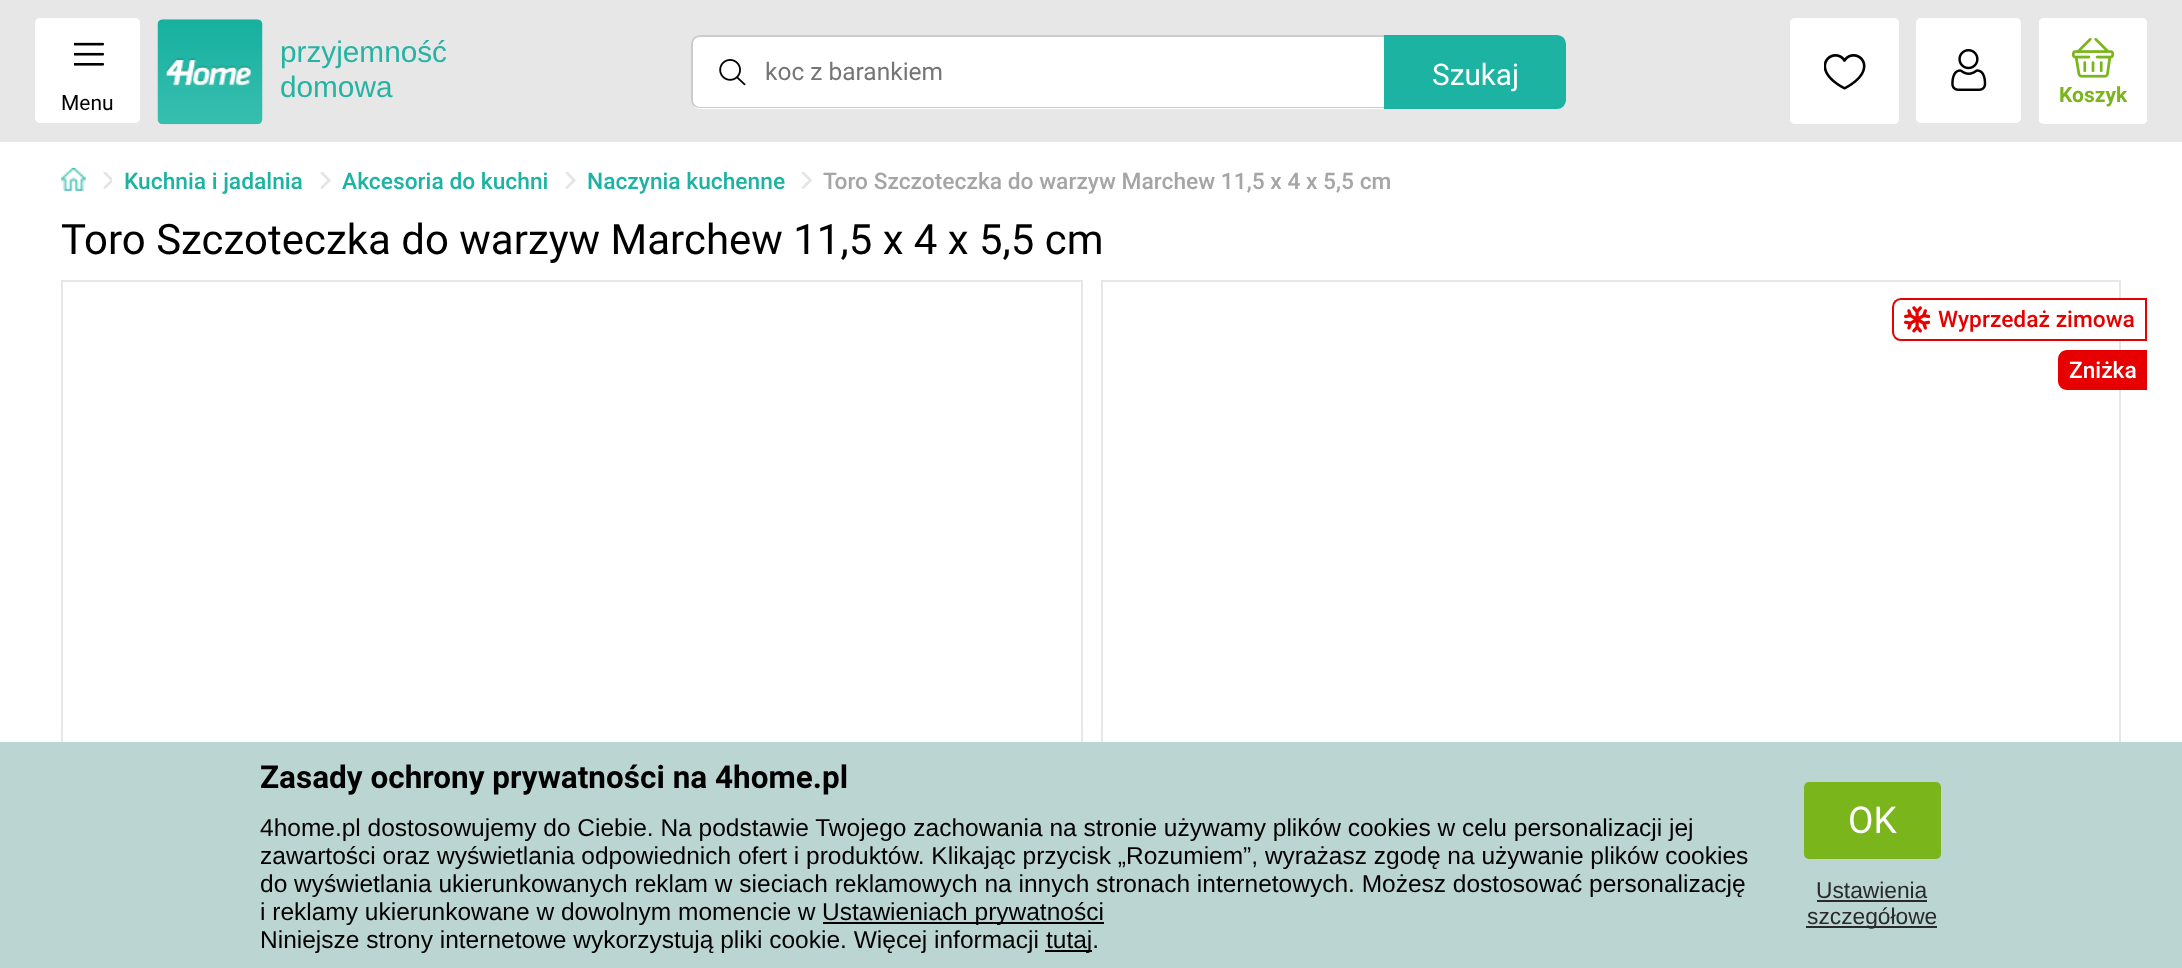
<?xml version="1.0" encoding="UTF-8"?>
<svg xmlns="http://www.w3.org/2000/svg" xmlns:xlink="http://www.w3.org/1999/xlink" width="2182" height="968">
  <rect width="100%" height="100%" fill="#ffffff" />
  <rect width="2182" height="142" fill="#e7e7e7" />
  <image x="157" y="19" width="106" height="106" xlink:href="image1.png" />
  <rect x="35" y="18" width="105" height="105" rx="5" fill="#ffffff" />
  <image x="74" y="42" width="30" height="24" xlink:href="image2.png" />
  <path d="M 700 35 h 859 v 74 h -859 c -5 0 -9 -4 -9 -9 v -56 c 0 -5 4 -9 9 -9 z" fill="#ffffff" />
  <image x="719" y="59" width="27" height="27" xlink:href="image3.png" />
  <path d="M 700 35 h 859 v 73 h -859 c -5 0 -9 -3 -9 -8 v -56 c 0 -5 4 -9 9 -9 z m 0 2 h 859 v 70 h -859 c -4 0 -7 -3 -7 -7 v -56 c 0 -4 3 -7 7 -7 z" fill="#cccccc" fill-rule="evenodd" />
  <path d="M 1385 36 h 172 c 4.5 0 8 3.5 8 8 v 56 c 0 4.5 -3.5 8 -8 8 h -172 z" fill="#1cb3a2" stroke="#1cb3a2" stroke-width="2" />
  <rect x="1790" y="18" width="109" height="106" rx="5" fill="#ffffff" />
  <path d="M 1796 18 h 98 c 2 0 5 2 5 5 v 96 c 0 3 -3 5 -5 5 h -98 c -3 0 -6 -2 -6 -5 v -96 c 0 -3 3 -5 6 -5 z m 0 1 h 98 c 1 0 3 2 3 4 v 96 c 0 3 -2 5 -3 5 h -98 c -2 0 -4 -2 -4 -5 v -96 c 0 -2 2 -4 4 -4 z" fill="#ffffff" fill-rule="evenodd" />
  <image x="1824" y="54" width="42" height="36" xlink:href="image4.png" />
  <rect x="1917" y="19" width="103" height="103" rx="4" fill="#ffffff" stroke="#ffffff" stroke-width="2" />
  <image x="1951" y="49" width="36" height="42" xlink:href="image5.png" />
  <rect x="2039" y="18" width="108" height="106" rx="5" fill="#ffffff" />
  <path d="M 2044 18 h 98 c 3 0 5 2 5 5 v 96 c 0 3 -2 5 -5 5 h -98 c -3 0 -5 -2 -5 -5 v -96 c 0 -3 2 -5 5 -5 z m 0 1 h 98 c 2 0 4 2 4 4 v 96 c 0 3 -2 5 -4 5 h -98 c -2 0 -4 -2 -4 -5 v -96 c 0 -2 2 -4 4 -4 z" fill="#ffffff" fill-rule="evenodd" />
  <image x="2072" y="37" width="42" height="41" xlink:href="image6.png" />
  <image x="61" y="168" width="25" height="23" xlink:href="image7.png" />
  <image x="103" y="172" width="9" height="17" xlink:href="image8.png" />
  <image x="320" y="172" width="11" height="17" xlink:href="image9.png" />
  <image x="565" y="172" width="11" height="17" xlink:href="image9.png" />
  <image x="801" y="172" width="11" height="17" xlink:href="image10.png" />
  <rect x="62" y="281" width="1020" height="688" fill="none" stroke="#e7e7e7" stroke-width="2" />
  <rect x="1102" y="281" width="1018" height="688" fill="none" stroke="#e7e7e7" stroke-width="2" />
  <path d="M 1901 299 h 245 v 41 h -245 c -4.5 0 -8 -3.5 -8 -8 v -25 c 0 -4.5 3.5 -8 8 -8 z" fill="#ffffff" stroke="#e60000" stroke-width="2" />
  <image x="1904" y="306" width="26" height="27" xlink:href="image11.png" />
  <path d="M 2067 350 h 80 v 40 h -80 c -5 0 -9 -4 -9 -9 v -22 c 0 -5 4 -9 9 -9 z" fill="#e60000" />
  <rect y="742" width="2182" height="226" fill="#bbd5d2" />
  <rect x="823" y="922" width="281" height="2" fill="#000000" />
  <rect x="1045" y="950" width="47" height="2" fill="#000000" />
  <rect x="1804" y="782" width="137" height="77" rx="5" fill="#7ab51c" />
  <rect x="1817" y="900" width="110" height="2" fill="#2a2a2a" />
  <rect x="1806" y="926" width="131" height="2" fill="#2a2a2a" />
  <text x="280" y="62" style="font-family: Liberation Sans; font-size: 29.75px; fill: #26b3a3">przyjemność</text>
  <text x="280" y="97" style="font-family: Liberation Sans; font-size: 29.75px; fill: #26b3a3">domowa</text>
  <text x="61" y="110" style="font-family: Roboto; font-size: 21px; fill: #000000">Menu</text>
  <text x="765" y="80" style="font-family: Roboto; font-size: 24.5px; fill: #757575">koc z barankiem</text>
  <text x="1432" y="85" style="font-family: Roboto; font-size: 29.75px; fill: #ffffff">Szukaj</text>
  <text x="2059" y="102" style="font-family: Roboto; font-size: 21px; font-weight: bold; fill: #7ab51c">Koszyk</text>
  <text x="124" y="189" style="font-family: Roboto; font-size: 22.75px; font-weight: 500; fill: #1cb3a2">Kuchnia i jadalnia</text>
  <text x="342" y="189" style="font-family: Roboto; font-size: 22.75px; font-weight: 500; fill: #1cb3a2">Akcesoria do kuchni</text>
  <text x="587" y="189" style="font-family: Roboto; font-size: 22.75px; font-weight: 500; fill: #1cb3a2">Naczynia kuchenne</text>
  <text x="823" y="189" style="font-family: Roboto; font-size: 22.75px; font-weight: 500; fill: #a5a5a5">Toro Szczoteczka do warzyw Marchew 11,5 x 4 x 5,5 cm</text>
  <text x="61" y="254" style="font-family: Roboto; font-size: 42px; fill: #000000">Toro Szczoteczka do warzyw Marchew 11,5 x 4 x 5,5 cm</text>
  <text x="1938" y="327" style="font-family: Roboto; font-size: 22.75px; font-weight: 500; fill: #e60000">Wyprzedaż zimowa</text>
  <text x="2069" y="378" style="font-family: Roboto; font-size: 22.75px; font-weight: 500; fill: #ffffff">Zniżka</text>
  <text x="260" y="788" style="font-family: Roboto; font-size: 31.5px; font-weight: bold; fill: #000000">Zasady ochrony prywatności na 4home.pl</text>
  <text x="260" y="836" style="font-family: Liberation Sans; font-size: 24.5px; fill: #000000">4home.pl dostosowujemy do Ciebie. Na podstawie Twojego zachowania na stronie używamy plików cookies w celu personalizacji jej</text>
  <text x="260" y="864" style="font-family: Liberation Sans; font-size: 24.5px; fill: #000000">zawartości oraz wyświetlania odpowiednich ofert i produktów. Klikając przycisk „Rozumiem”, wyrażasz zgodę na używanie plików cookies</text>
  <text x="260" y="892" style="font-family: Liberation Sans; font-size: 24.5px; fill: #000000">do wyświetlania ukierunkowanych reklam w sieciach reklamowych na innych stronach internetowych. Możesz dostosować personalizację</text>
  <text x="260" y="920" style="font-family: Liberation Sans; font-size: 24.5px; fill: #000000">i reklamy ukierunkowane w dowolnym momencie w</text>
  <text x="822" y="920" style="font-family: Liberation Sans; font-size: 24.5px; fill: #000000">Ustawieniach prywatności</text>
  <text x="260" y="948" style="font-family: Liberation Sans; font-size: 24.5px; fill: #000000">Niniejsze strony internetowe wykorzystują pliki cookie. Więcej informacji</text>
  <text x="1046" y="948" style="font-family: Liberation Sans; font-size: 24.5px; fill: #000000">tutaj.</text>
  <text x="1848" y="833" style="font-family: Roboto; font-size: 37px; fill: #ffffff">OK</text>
  <text x="1816" y="898" style="font-family: Liberation Sans; font-size: 22.75px; fill: #2a2a2a">Ustawienia</text>
  <text x="1807" y="924" style="font-family: Liberation Sans; font-size: 22.75px; fill: #2a2a2a">szczegółowe</text>
</svg>
